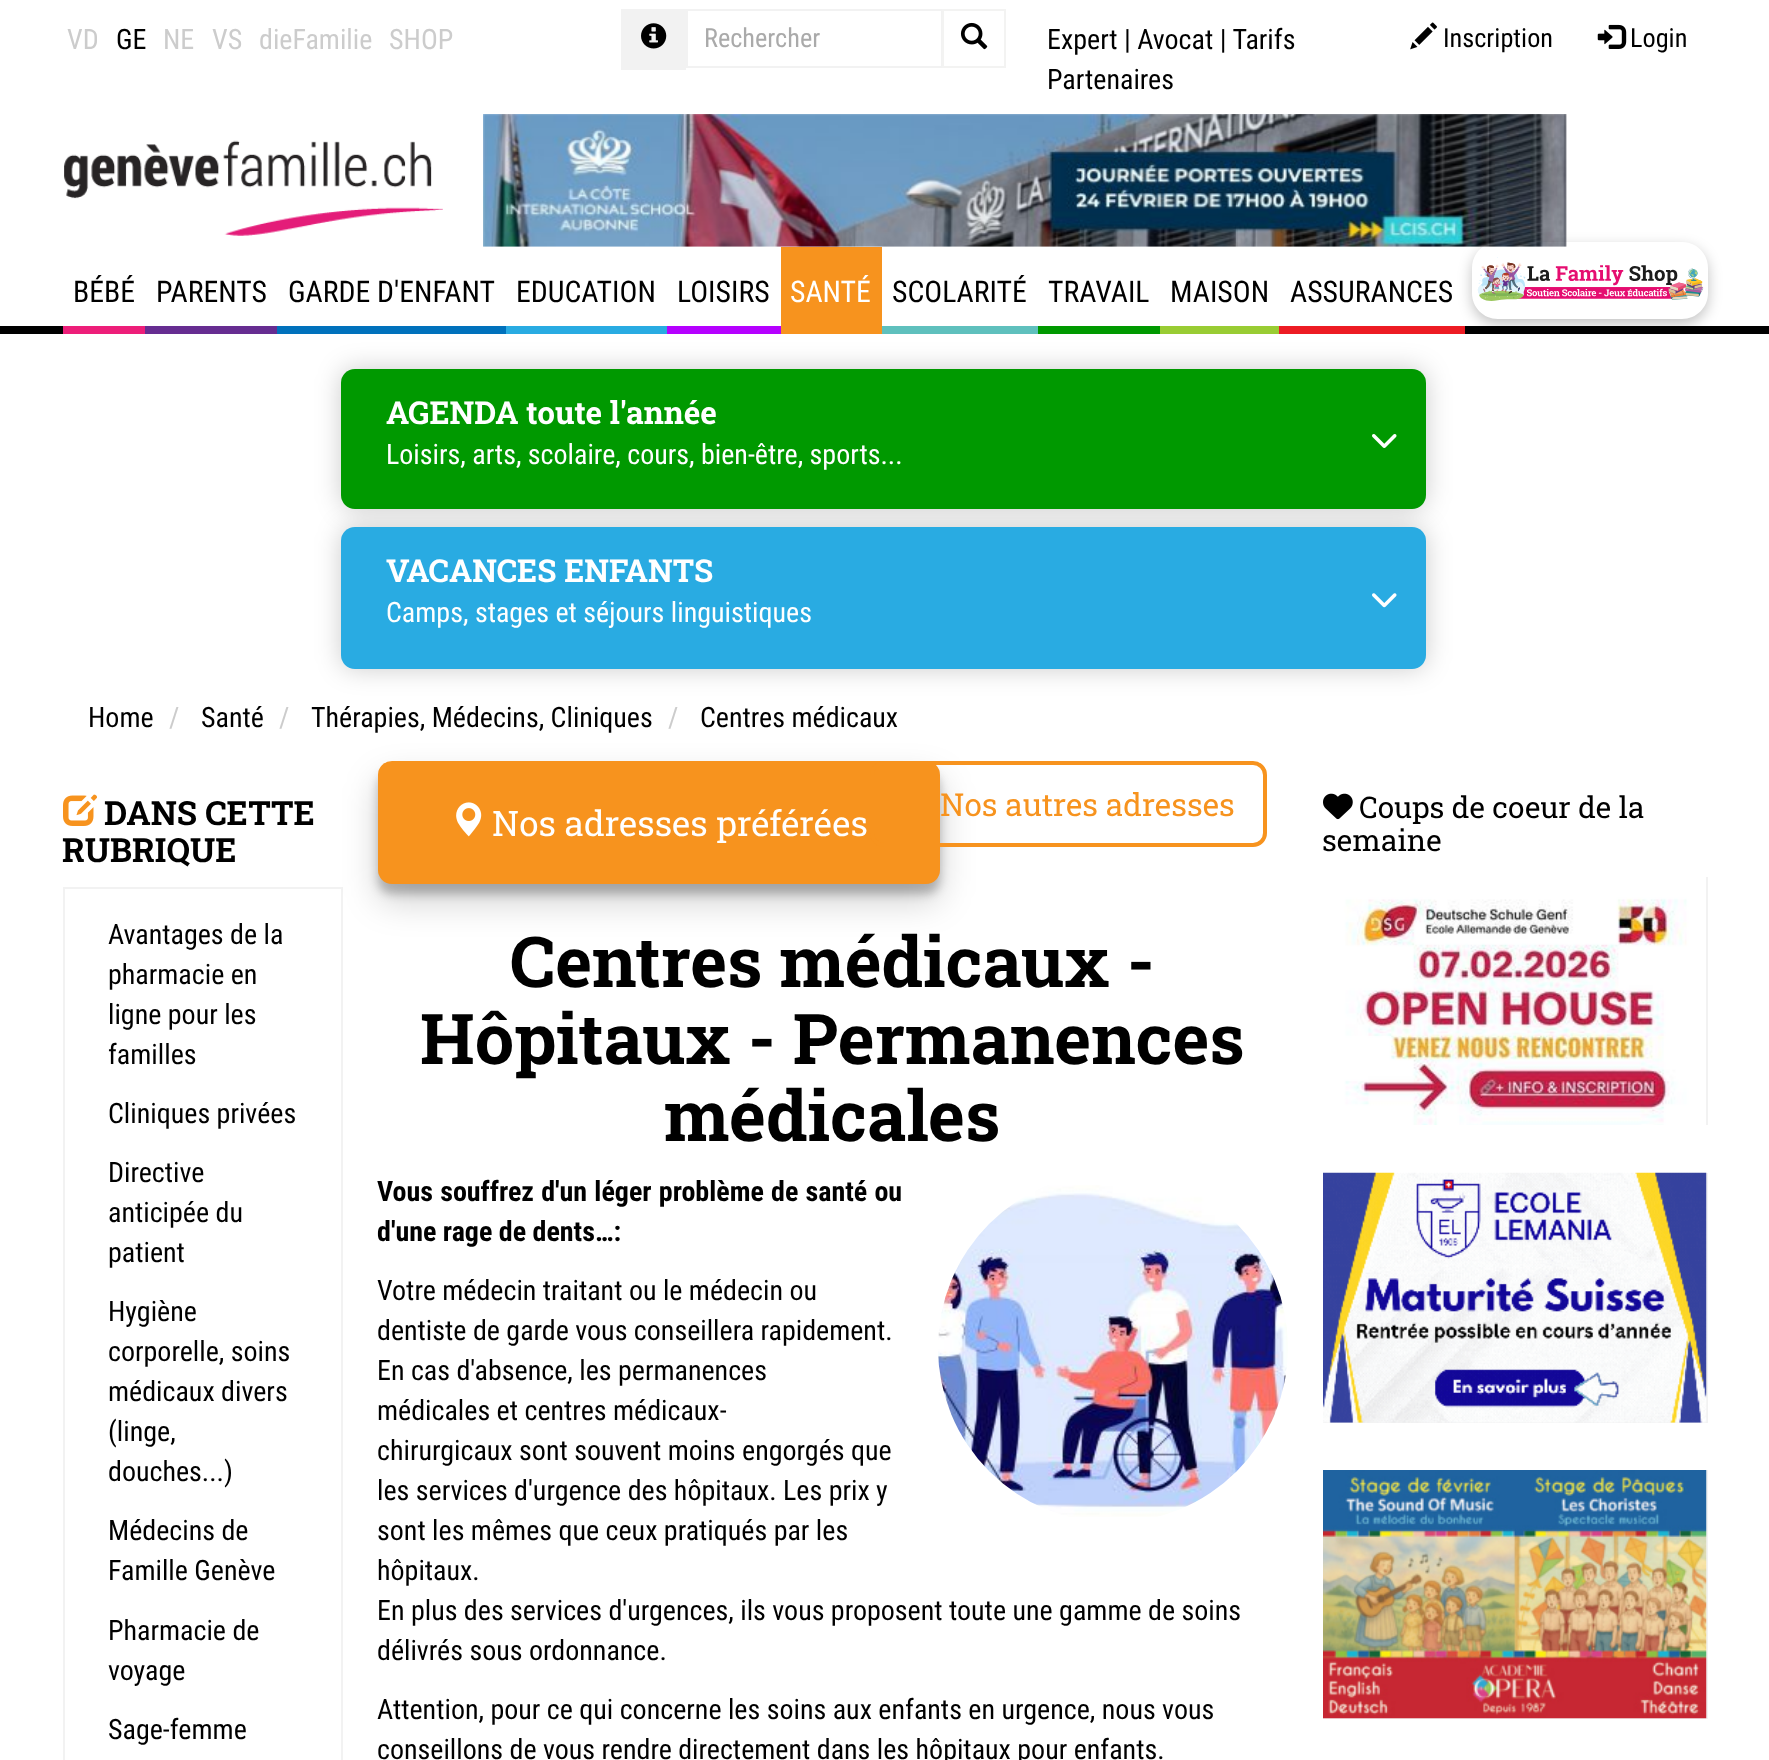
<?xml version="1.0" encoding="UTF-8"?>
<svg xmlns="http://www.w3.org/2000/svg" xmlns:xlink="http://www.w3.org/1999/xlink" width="1769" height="1760">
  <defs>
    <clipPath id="clip1"><path d="M 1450 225 h 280 v 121 h -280 z m 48 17 h 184 c 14.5 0 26 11.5 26 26 v 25 c 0 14.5 -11.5 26 -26 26 h -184 c -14.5 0 -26 -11.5 -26 -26 v -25 c 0 -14.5 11.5 -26 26 -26 z" clip-rule="evenodd" /></clipPath>
  </defs>
  <rect width="100%" height="100%" fill="#ffffff" />
  <rect x="621" y="9" width="65" height="61" fill="#f2f2f2" />
  <image x="641" y="23" width="26" height="26" xlink:href="image1.png" />
  <rect x="687" y="10" width="255" height="57" fill="none" stroke="#f2f2f2" stroke-width="2" />
  <rect x="943" y="10" width="62" height="57" fill="none" stroke="#f3f3f2" stroke-width="2" />
  <image x="960" y="22" width="28" height="28" xlink:href="image2.png" />
  <image x="1410" y="22" width="27" height="28" xlink:href="image3.png" />
  <image x="1597" y="24" width="30" height="25" xlink:href="image4.png" />
  <image x="64" y="140" width="379" height="96" xlink:href="image5.png" />
  <image x="483" y="114" width="1084" height="133" xlink:href="image6.png" />
  <rect y="326" width="1769" height="8" fill="#000000" />
  <rect x="63" y="326" width="82" height="8" fill="#ed1e79" />
  <rect x="145" y="326" width="132" height="8" fill="#662d91" />
  <rect x="277" y="326" width="229" height="8" fill="#0071bc" />
  <rect x="506" y="326" width="161" height="8" fill="#29abe2" />
  <rect x="667" y="326" width="114" height="8" fill="#b500ff" />
  <rect x="781" y="247" width="101" height="87" fill="#f7931e" />
  <rect x="882" y="326" width="156" height="8" fill="#5fc0bd" />
  <rect x="1038" y="326" width="122" height="8" fill="#009900" />
  <rect x="1160" y="326" width="119" height="8" fill="#99cc33" />
  <rect x="1279" y="326" width="186" height="8" fill="#ed1c24" />
  <g clip-path="url(#clip1)">
    <rect x="1472" y="247" width="236" height="77" rx="26" fill="#000000" fill-opacity="0.24" filter="blur(7px)" />
  </g>
  <image x="1477" y="257" width="227" height="44" xlink:href="image7.png" />
  <rect x="341" y="369" width="1085" height="140" rx="14" fill="#000000" fill-opacity="0.2" filter="blur(13px)" />
  <rect x="341" y="369" width="1085" height="140" rx="14" fill="#009900" />
  <image x="1372" y="434" width="25" height="14" xlink:href="image8.png" />
  <rect x="341" y="527" width="1085" height="142" rx="14" fill="#000000" fill-opacity="0.2" filter="blur(13px)" />
  <rect x="341" y="527" width="1085" height="142" rx="14" fill="#29abe2" />
  <image x="1372" y="593" width="25" height="15" xlink:href="image9.png" />
  <image x="63" y="794" width="34" height="32" xlink:href="image10.png" />
  <rect x="64" y="888" width="278" height="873" fill="none" stroke="#f2f2f2" stroke-width="2" />
  <rect x="378" y="772" width="562" height="122" rx="14" fill="#000000" fill-opacity="0.23" filter="blur(5px)" />
  <rect x="378" y="779" width="562" height="122" rx="14" fill="#000000" fill-opacity="0.19" filter="blur(17.5px)" />
  <rect x="378" y="761" width="562" height="123" rx="14" fill="#f7931e" />
  <rect x="872" y="763" width="393" height="82" rx="12" fill="none" stroke="#f7931e" stroke-width="4" />
  <image x="456" y="802" width="26" height="35" xlink:href="image11.png" />
  <image x="938" y="1185" width="350" height="332" xlink:href="image12.png" />
  <image x="1323" y="793" width="30" height="27" xlink:href="image13.png" />
  <rect x="1706" y="877" width="2" height="248" fill="#f2f2f2" />
  <image x="1323" y="877" width="383" height="248" xlink:href="image14.png" />
  <rect x="1323" y="1173" width="385" height="250" fill="#f2f2f2" />
  <image x="1323" y="1172" width="384" height="251" xlink:href="image15.png" />
  <rect x="1323" y="1470" width="385" height="249" fill="#f2f2f2" />
  <image x="1323" y="1470" width="384" height="249" xlink:href="image16.png" />
  <text x="67" y="49" style="font-family: Roboto Condensed; font-size: 28px; fill: #cccccc">VD</text>
  <text x="116" y="49" style="font-family: Roboto Condensed; font-size: 28px; fill: #000000">GE</text>
  <text x="163" y="49" style="font-family: Roboto Condensed; font-size: 28px; fill: #cccccc">NE</text>
  <text x="212" y="49" style="font-family: Roboto Condensed; font-size: 28px; fill: #cccccc">VS</text>
  <text x="259" y="49" style="font-family: Roboto Condensed; font-size: 28px; fill: #cccccc">dieFamilie</text>
  <text x="389" y="49" style="font-family: Roboto Condensed; font-size: 28px; fill: #cccccc">SHOP</text>
  <text x="704" y="47" style="font-family: Roboto Condensed; font-size: 26.25px; fill: #aaaaaa">Rechercher</text>
  <text x="1047" y="49" style="font-family: Roboto Condensed; font-size: 28px; fill: #000000">Expert | Avocat | Tarifs</text>
  <text x="1047" y="89" style="font-family: Roboto Condensed; font-size: 28px; fill: #000000">Partenaires</text>
  <text x="1443" y="47" style="font-family: Roboto Condensed; font-size: 26.25px; fill: #000000">Inscription</text>
  <text x="1630" y="47" style="font-family: Roboto Condensed; font-size: 26.25px; fill: #000000">Login</text>
  <text x="73" y="302" style="font-family: Roboto Condensed; font-size: 29.75px; fill: #000000">BÉBÉ</text>
  <text x="156" y="302" style="font-family: Roboto Condensed; font-size: 29.75px; fill: #000000">PARENTS</text>
  <text x="288" y="302" style="font-family: Roboto Condensed; font-size: 29.75px; fill: #000000">GARDE D'ENFANT</text>
  <text x="516" y="302" style="font-family: Roboto Condensed; font-size: 29.75px; fill: #000000">EDUCATION</text>
  <text x="677" y="302" style="font-family: Roboto Condensed; font-size: 29.75px; fill: #000000">LOISIRS</text>
  <text x="790" y="302" style="font-family: Roboto Condensed; font-size: 29.75px; fill: #ffffff">SANTÉ</text>
  <text x="892" y="302" style="font-family: Roboto Condensed; font-size: 29.75px; fill: #000000">SCOLARITÉ</text>
  <text x="1048" y="302" style="font-family: Roboto Condensed; font-size: 29.75px; fill: #000000">TRAVAIL</text>
  <text x="1170" y="302" style="font-family: Roboto Condensed; font-size: 29.75px; fill: #000000">MAISON</text>
  <text x="1290" y="302" style="font-family: Roboto Condensed; font-size: 29.75px; fill: #000000">ASSURANCES</text>
  <text x="386" y="424" style="font-family: Roboto Slab; font-size: 31.5px; font-weight: bold; fill: #ffffff">AGENDA toute l'année</text>
  <text x="386" y="464" style="font-family: Roboto Condensed; font-size: 28px; fill: #ffffff">Loisirs, arts, scolaire, cours, bien-être, sports...</text>
  <text x="386" y="582" style="font-family: Roboto Slab; font-size: 31.5px; font-weight: bold; fill: #ffffff">VACANCES ENFANTS</text>
  <text x="386" y="622" style="font-family: Roboto Condensed; font-size: 28px; fill: #ffffff">Camps, stages et séjours linguistiques</text>
  <text x="88" y="727" style="font-family: Roboto Condensed; font-size: 28px; fill: #000000">Home</text>
  <text x="169" y="727" style="font-family: Roboto Condensed; font-size: 28px; fill: #cccccc">/</text>
  <text x="201" y="727" style="font-family: Roboto Condensed; font-size: 28px; fill: #000000">Santé</text>
  <text x="279" y="727" style="font-family: Roboto Condensed; font-size: 28px; fill: #cccccc">/</text>
  <text x="311" y="727" style="font-family: Roboto Condensed; font-size: 28px; fill: #000000">Thérapies, Médecins, Cliniques</text>
  <text x="668" y="727" style="font-family: Roboto Condensed; font-size: 28px; fill: #cccccc">/</text>
  <text x="700" y="727" style="font-family: Roboto Condensed; font-size: 28px; fill: #000000">Centres médicaux</text>
  <text x="104" y="825" style="font-family: Roboto Slab; font-size: 33.25px; font-weight: bold; fill: #000000">DANS CETTE</text>
  <text x="62" y="862" style="font-family: Roboto Slab; font-size: 33.25px; font-weight: bold; fill: #000000">RUBRIQUE</text>
  <text x="108" y="944" style="font-family: Roboto Condensed; font-size: 28px; fill: #000000">Avantages de la</text>
  <text x="108" y="984" style="font-family: Roboto Condensed; font-size: 28px; fill: #000000">pharmacie en</text>
  <text x="108" y="1024" style="font-family: Roboto Condensed; font-size: 28px; fill: #000000">ligne pour les</text>
  <text x="108" y="1064" style="font-family: Roboto Condensed; font-size: 28px; fill: #000000">familles</text>
  <text x="108" y="1123" style="font-family: Roboto Condensed; font-size: 28px; fill: #000000">Cliniques privées</text>
  <text x="108" y="1182" style="font-family: Roboto Condensed; font-size: 28px; fill: #000000">Directive</text>
  <text x="108" y="1222" style="font-family: Roboto Condensed; font-size: 28px; fill: #000000">anticipée du</text>
  <text x="108" y="1262" style="font-family: Roboto Condensed; font-size: 28px; fill: #000000">patient</text>
  <text x="108" y="1321" style="font-family: Roboto Condensed; font-size: 28px; fill: #000000">Hygiène</text>
  <text x="108" y="1361" style="font-family: Roboto Condensed; font-size: 28px; fill: #000000">corporelle, soins</text>
  <text x="108" y="1401" style="font-family: Roboto Condensed; font-size: 28px; fill: #000000">médicaux divers</text>
  <text x="108" y="1441" style="font-family: Roboto Condensed; font-size: 28px; fill: #000000">(linge,</text>
  <text x="108" y="1481" style="font-family: Roboto Condensed; font-size: 28px; fill: #000000">douches...)</text>
  <text x="108" y="1540" style="font-family: Roboto Condensed; font-size: 28px; fill: #000000">Médecins de</text>
  <text x="108" y="1580" style="font-family: Roboto Condensed; font-size: 28px; fill: #000000">Famille Genève</text>
  <text x="108" y="1640" style="font-family: Roboto Condensed; font-size: 28px; fill: #000000">Pharmacie de</text>
  <text x="108" y="1680" style="font-family: Roboto Condensed; font-size: 28px; fill: #000000">voyage</text>
  <text x="108" y="1739" style="font-family: Roboto Condensed; font-size: 28px; fill: #000000">Sage-femme</text>
  <text x="940" y="816" style="font-family: Roboto Slab; font-size: 31.5px; fill: #f7931e">Nos autres adresses</text>
  <text x="492" y="836" style="font-family: Roboto Slab; font-size: 35px; fill: #ffffff">Nos adresses préférées</text>
  <text x="510" y="987" style="font-family: Roboto Slab; font-size: 70px; font-weight: bold; fill: #000000">Centres médicaux -</text>
  <text x="420" y="1064" style="font-family: Roboto Slab; font-size: 70px; font-weight: bold; fill: #000000">Hôpitaux - Permanences</text>
  <text x="664" y="1141" style="font-family: Roboto Slab; font-size: 70px; font-weight: bold; fill: #000000">médicales</text>
  <text x="377" y="1201" word-spacing="0.75" style="font-family: Roboto Condensed; font-size: 28px; font-weight: bold; fill: #000000">Vous souffrez d'un léger problème de santé ou</text>
  <text x="377" y="1241" style="font-family: Roboto Condensed; font-size: 28px; font-weight: bold; fill: #000000">d'une rage de dents…:</text>
  <text x="377" y="1300" style="font-family: Roboto Condensed; font-size: 28px; fill: #000000">Votre médecin traitant ou le médecin ou</text>
  <text x="377" y="1340" style="font-family: Roboto Condensed; font-size: 28px; fill: #000000">dentiste de garde vous conseillera rapidement.</text>
  <text x="377" y="1380" style="font-family: Roboto Condensed; font-size: 28px; fill: #000000">En cas d'absence, les permanences</text>
  <text x="377" y="1420" style="font-family: Roboto Condensed; font-size: 28px; fill: #000000">médicales et centres médicaux-</text>
  <text x="377" y="1460" style="font-family: Roboto Condensed; font-size: 28px; fill: #000000">chirurgicaux sont souvent moins engorgés que</text>
  <text x="377" y="1500" style="font-family: Roboto Condensed; font-size: 28px; fill: #000000">les services d'urgence des hôpitaux. Les prix y</text>
  <text x="377" y="1540" style="font-family: Roboto Condensed; font-size: 28px; fill: #000000">sont les mêmes que ceux pratiqués par les</text>
  <text x="377" y="1580" style="font-family: Roboto Condensed; font-size: 28px; fill: #000000">hôpitaux.</text>
  <text x="377" y="1620" style="font-family: Roboto Condensed; font-size: 28px; fill: #000000">En plus des services d'urgences, ils vous proposent toute une gamme de soins</text>
  <text x="377" y="1660" style="font-family: Roboto Condensed; font-size: 28px; fill: #000000">délivrés sous ordonnance.</text>
  <text x="377" y="1719" style="font-family: Roboto Condensed; font-size: 28px; fill: #000000">Attention, pour ce qui concerne les soins aux enfants en urgence, nous vous</text>
  <text x="377" y="1759" style="font-family: Roboto Condensed; font-size: 28px; fill: #000000">conseillons de vous rendre directement dans les hôpitaux pour enfants.</text>
  <text x="1359" y="818" style="font-family: Roboto Slab; font-size: 29.75px; fill: #000000">Coups de coeur de la</text>
  <text x="1322" y="851" style="font-family: Roboto Slab; font-size: 29.75px; fill: #000000">semaine</text>
</svg>
